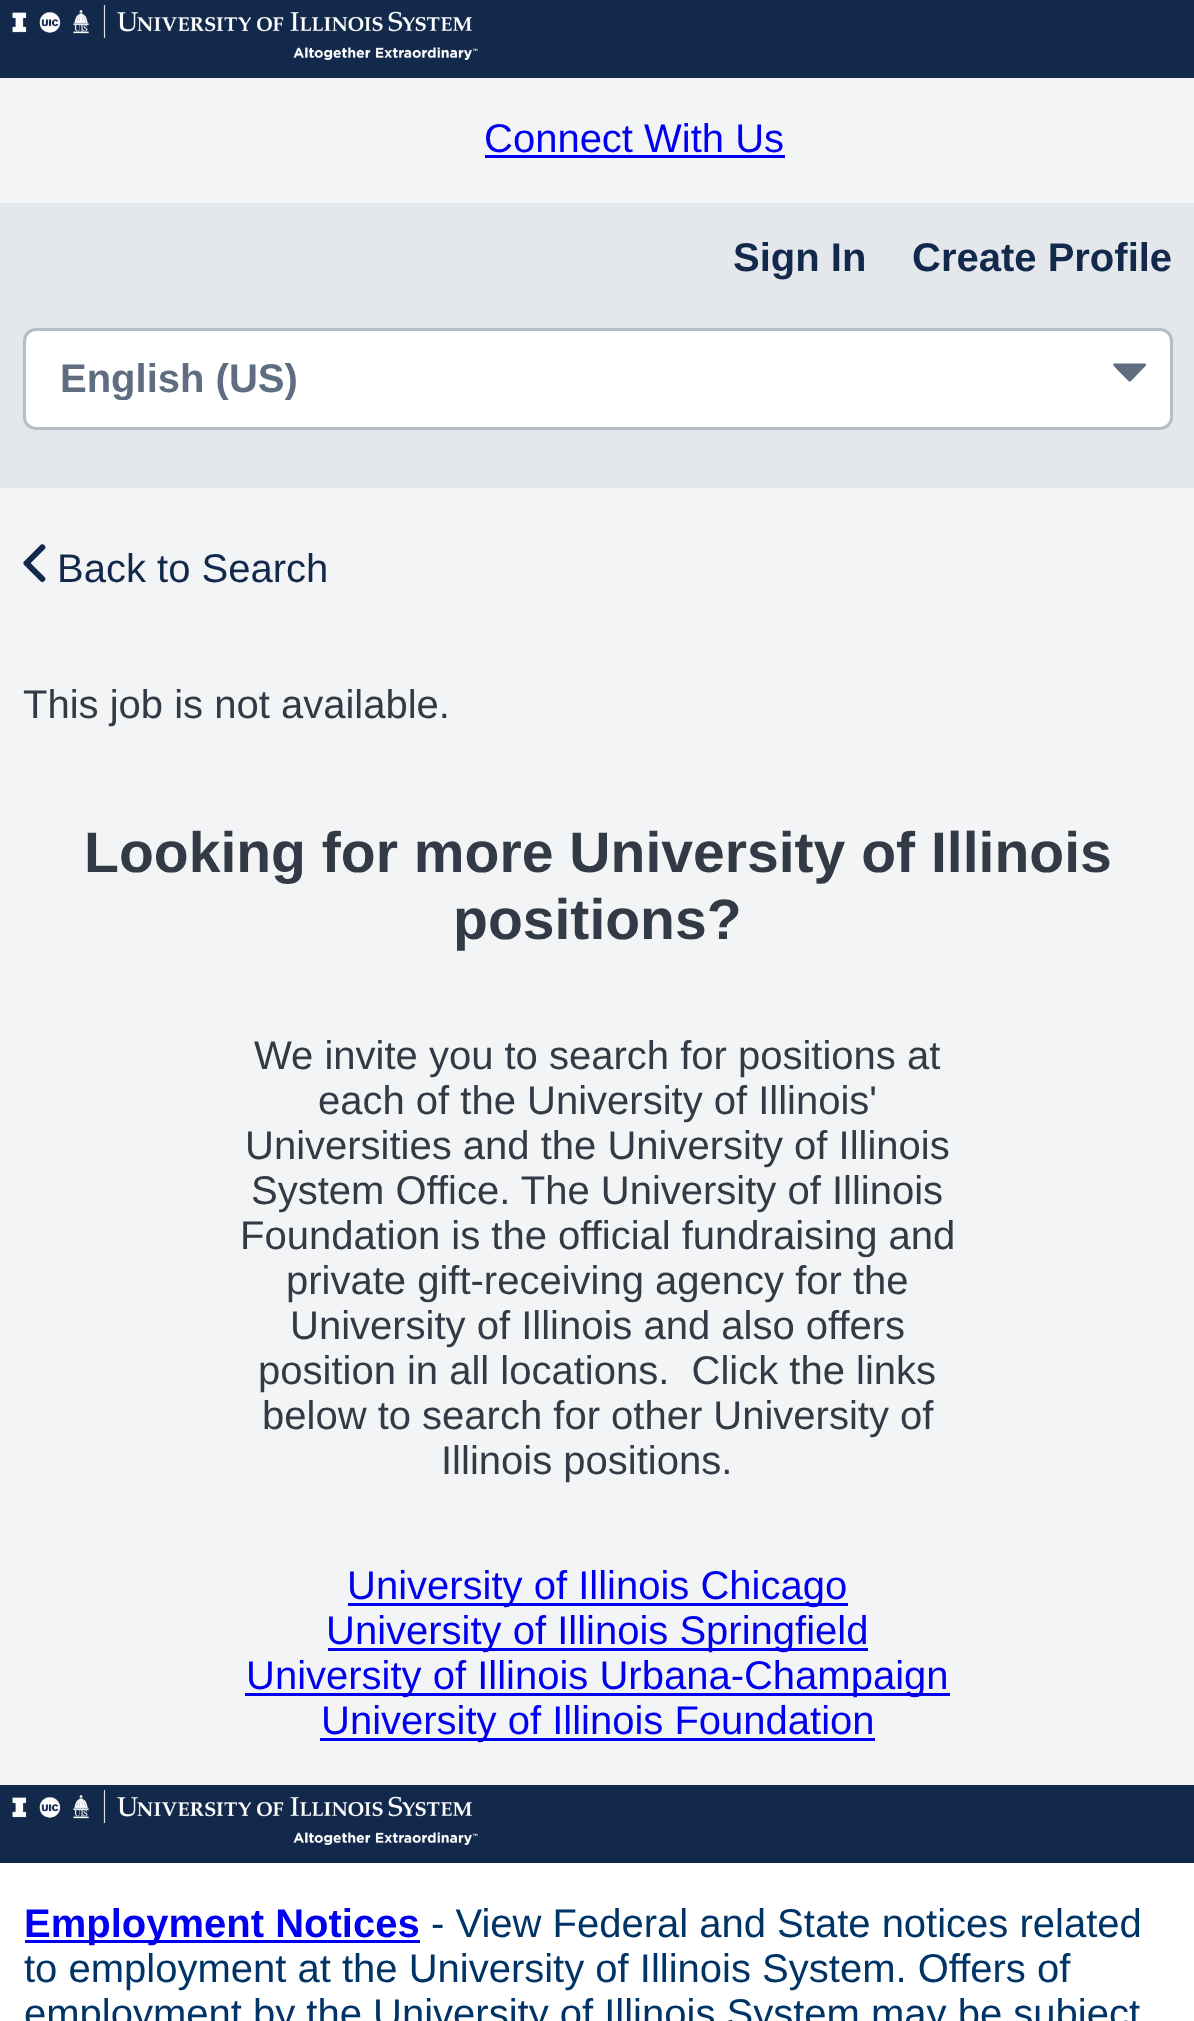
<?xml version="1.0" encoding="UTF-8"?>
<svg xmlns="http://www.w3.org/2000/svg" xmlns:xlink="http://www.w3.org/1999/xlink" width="1194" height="2021">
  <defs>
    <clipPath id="clip1"><rect x="60" y="358" width="1030" height="42" /></clipPath>
  </defs>
  <rect width="100%" height="100%" fill="#f3f4f6" />
  <rect width="1194" height="78" fill="#13294b" />
  <image x="12" y="5" width="466" height="55" xlink:href="image1.png" />
  <rect x="485" y="155" width="300" height="3" fill="#0000ee" />
  <rect y="203" width="1194" height="285" fill="#e4e7ec" />
  <rect x="24.5" y="329.5" width="1147" height="99" rx="11.5" fill="#ffffff" stroke="#b5bec5" stroke-width="3" />
  <path d="M 1144.5 363.5 h -30.5 c -2.5 0.5 0.5 3 4.5 7.5 l 10 10 c 1.5 2 4 -1.5 5 -2.5 l 9.5 -10 c 0.5 -0.5 6 -5 1.5 -5 z" fill="#5e6d80" />
  <image x="23" y="544" width="23" height="39" xlink:href="image2.png" />
  <rect x="348" y="1603" width="500" height="3" fill="#0000ee" />
  <rect x="328" y="1648" width="540" height="3" fill="#0000ee" />
  <rect x="245" y="1693" width="705" height="3" fill="#0000ee" />
  <rect x="320" y="1738" width="555" height="3" fill="#0000ee" />
  <rect y="1785" width="1194" height="78" fill="#13294b" />
  <image x="12" y="1790" width="466" height="55" xlink:href="image1.png" />
  <rect y="1863" width="1194" height="158" fill="#ffffff" />
  <rect x="25" y="1940" width="395" height="3" fill="#0000ee" />
  <text x="484" y="152" style="font-family: Liberation Sans; font-size: 40px; fill: #0000ee">Connect With Us</text>
  <text x="733" y="271" style="font-family: Liberation Sans; font-size: 40px; font-weight: bold; fill: #13294b">Sign In</text>
  <text x="912" y="271" style="font-family: Liberation Sans; font-size: 40px; font-weight: bold; fill: #13294b">Create Profile</text>
  <g clip-path="url(#clip1)">
    <text x="60" y="392" style="font-family: Liberation Sans; font-size: 40px; font-weight: bold; fill: #5e6d80">English (US)</text>
  </g>
  <text x="57" y="582" style="font-family: Liberation Sans; font-size: 40px; fill: #13294b">Back to Search</text>
  <text x="23" y="718" style="font-family: Liberation Sans; font-size: 40px; fill: #323a45">This job is not available.</text>
  <text x="84" y="872" style="font-family: Liberation Sans; font-size: 57.1px; font-weight: bold; fill: #323a45">Looking for more University of Illinois</text>
  <text x="453" y="939" style="font-family: Liberation Sans; font-size: 57.1px; font-weight: bold; fill: #323a45">positions?</text>
  <text x="254" y="1069" style="font-family: Liberation Sans; font-size: 40px; fill: #323a45">We invite you to search for positions at</text>
  <text x="318" y="1114" style="font-family: Liberation Sans; font-size: 40px; fill: #323a45">each of the University of Illinois'</text>
  <text x="245" y="1159" style="font-family: Liberation Sans; font-size: 40px; fill: #323a45">Universities and the University of Illinois</text>
  <text x="251" y="1204" style="font-family: Liberation Sans; font-size: 40px; fill: #323a45">System Office. The University of Illinois</text>
  <text x="240" y="1249" style="font-family: Liberation Sans; font-size: 40px; fill: #323a45">Foundation is the official fundraising and</text>
  <text x="286" y="1294" style="font-family: Liberation Sans; font-size: 40px; fill: #323a45">private gift-receiving agency for the</text>
  <text x="290" y="1339" style="font-family: Liberation Sans; font-size: 40px; fill: #323a45">University of Illinois and also offers</text>
  <text x="258" y="1384" style="font-family: Liberation Sans; font-size: 40px; fill: #323a45" xml:space="preserve">position in all locations.  Click the links</text>
  <text x="262" y="1429" style="font-family: Liberation Sans; font-size: 40px; fill: #323a45">below to search for other University of</text>
  <text x="441" y="1474" style="font-family: Liberation Sans; font-size: 40px; fill: #323a45">Illinois positions.</text>
  <text x="347" y="1599" style="font-family: Liberation Sans; font-size: 40px; fill: #0000ee">University of Illinois Chicago</text>
  <text x="326" y="1644" style="font-family: Liberation Sans; font-size: 40px; fill: #0000ee">University of Illinois Springfield</text>
  <text x="246" y="1689" style="font-family: Liberation Sans; font-size: 40px; fill: #0000ee">University of Illinois Urbana-Champaign</text>
  <text x="321" y="1734" style="font-family: Liberation Sans; font-size: 40px; fill: #0000ee">University of Illinois Foundation</text>
  <text x="24" y="1937" style="font-family: Liberation Sans; font-size: 40px; font-weight: bold; fill: #0000ee">Employment Notices</text>
  <text x="431" y="1937" style="font-family: Liberation Sans; font-size: 40px; fill: #003366">- View Federal and State notices related</text>
  <text x="24" y="1982" style="font-family: Liberation Sans; font-size: 40px; fill: #003366">to employment at the University of Illinois System. Offers of</text>
  <text x="24" y="2027" style="font-family: Liberation Sans; font-size: 40px; fill: #003366">employment by the University of Illinois System may be subject</text>
</svg>
